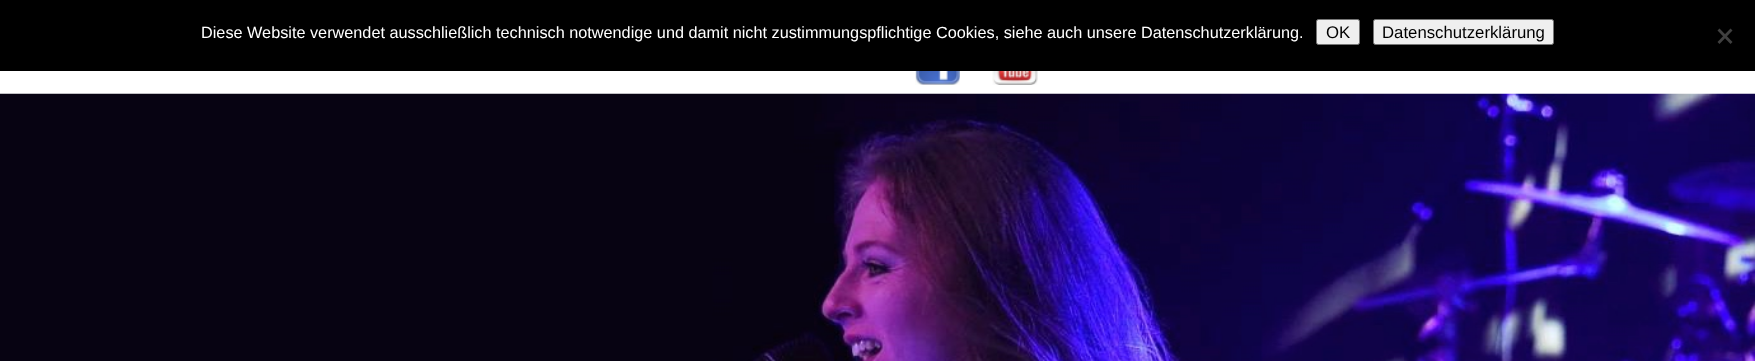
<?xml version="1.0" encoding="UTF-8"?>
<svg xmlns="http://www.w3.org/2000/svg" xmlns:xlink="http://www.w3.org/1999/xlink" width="1755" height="361">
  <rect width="100%" height="100%" fill="#ffffff" />
  <rect width="1755" height="71" fill="#000000" />
  <rect x="1316.5" y="19.5" width="43" height="25" rx="2" fill="#efefef" stroke="#767676" />
  <rect x="1373.5" y="19.5" width="180" height="25" rx="2" fill="#efefef" stroke="#767676" />
  <path d="M 1730.5 28.5 l 2 2 l -13 13.5 l -2 -2 z" fill="#404040" />
  <path d="M 1717.5 30.5 l 2 -2 l 13 13.5 l -2 2 z" fill="#404040" />
  <image x="915" y="71" width="45" height="14" xlink:href="image1.png" />
  <image x="992" y="71" width="46" height="14" xlink:href="image2.png" />
  <image x="0" y="93" width="1755" height="268" xlink:href="image3.png" />
  <text x="201" y="38" style="font-family: Liberation Sans; font-size: 16.25px; fill: #ffffff">Diese Website verwendet ausschließlich technisch notwendige und damit nicht zustimmungspflichtige Cookies, siehe auch unsere Datenschutzerklärung.</text>
  <text x="1326" y="38" style="font-family: Liberation Sans; font-size: 16.75px; fill: #000000">OK</text>
  <text x="1382" y="38" style="font-family: Liberation Sans; font-size: 16.75px; fill: #000000">Datenschutzerklärung</text>
</svg>
